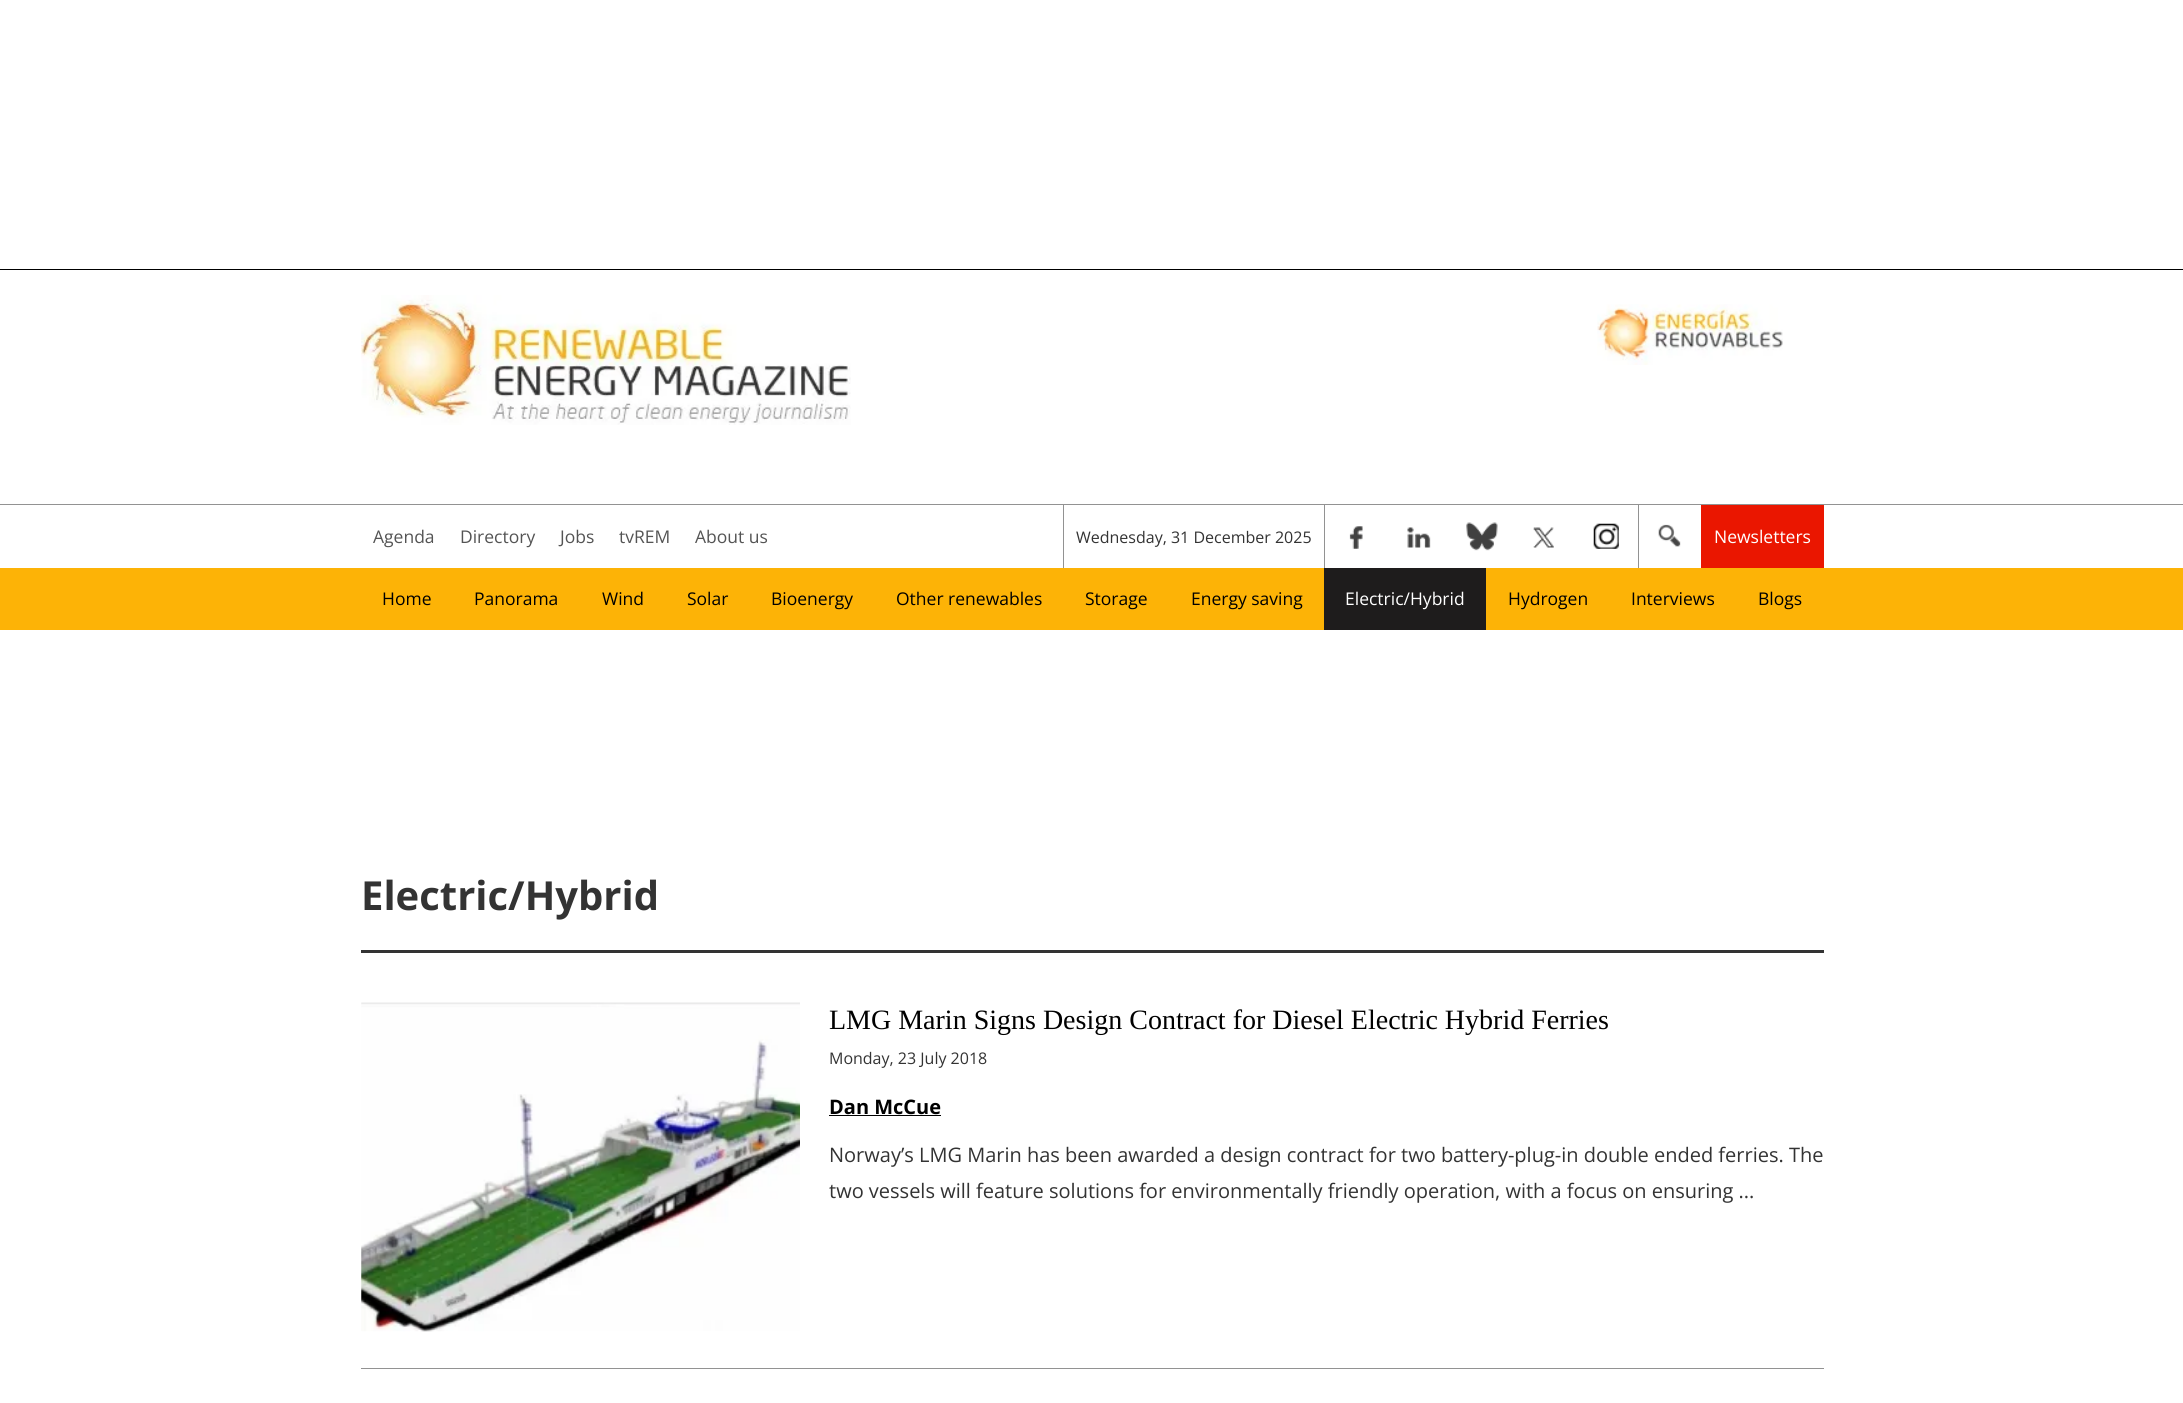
#include <cairo.h>
#include <math.h>
#include <stddef.h>


static void set_color(cairo_t *cr, unsigned color) {
    cairo_set_source_rgb(cr, (color >> 16) / 255.0, (color >> 8 & 255) / 255.0, (color & 255) / 255.0);
}

static void draw_text(cairo_t *cr, double x, double y, const char *s, const char *family, double size, int italic, int bold, unsigned color) {
    cairo_select_font_face(cr, family, italic ? CAIRO_FONT_SLANT_ITALIC : CAIRO_FONT_SLANT_NORMAL,
        bold ? CAIRO_FONT_WEIGHT_BOLD : CAIRO_FONT_WEIGHT_NORMAL);
    cairo_set_font_size(cr, size);
    set_color(cr, color);
    cairo_move_to(cr, x, y);
    cairo_show_text(cr, s);
}

static void fill_rect(cairo_t *cr, double x, double y, double w, double h, unsigned color) {
    set_color(cr, color);
    cairo_rectangle(cr, x, y, w, h);
    cairo_fill(cr);
}

static void draw_image(cairo_t *cr, const char *path, double x, double y, double w, double h) {
    cairo_surface_t *image = cairo_image_surface_create_from_png(path);
    cairo_save(cr);
    cairo_set_source_surface(cr, image, x, y);
    cairo_rectangle(cr, x, y, w, h);
    cairo_fill(cr);
    cairo_restore(cr);
    cairo_surface_destroy(image);
}

int main(void) {
    cairo_surface_t *surface = cairo_image_surface_create(CAIRO_FORMAT_RGB24, 2183, 1403);
    cairo_t *cr = cairo_create(surface);
    cairo_font_options_t *options = cairo_font_options_create();
    cairo_font_options_set_hint_metrics(options, CAIRO_HINT_METRICS_OFF);
    cairo_font_options_set_hint_style(options, CAIRO_HINT_STYLE_NONE);
    cairo_set_font_options(cr, options);
    cairo_set_miter_limit(cr, 4);
    set_color(cr, 0xFFFFFF);
    cairo_paint(cr);
    fill_rect(cr, 0, 269, 2183, 1, 0x000000);
    draw_image(cr, "assets/img1.png", 361, 295, 490, 130);
    draw_image(cr, "assets/img2.png", 1597, 304, 186, 61);
    fill_rect(cr, 0, 504, 2183, 1, 0x929292);
    draw_text(cr, 373, 543, "Agenda", "Open Sans", 17.5, 0, 0, 0x545454);
    draw_text(cr, 460, 543, "Directory", "Open Sans", 17.5, 0, 0, 0x545454);
    draw_text(cr, 560, 543, "Jobs", "Open Sans", 17.5, 0, 0, 0x545454);
    draw_text(cr, 619, 543, "tvREM", "Open Sans", 17.5, 0, 0, 0x545454);
    draw_text(cr, 695, 543, "About us", "Open Sans", 17.5, 0, 0, 0x545454);
    fill_rect(cr, 1324, 505, 1, 63, 0x929292);
    fill_rect(cr, 1063, 505, 1, 63, 0x929292);
    draw_text(cr, 1076, 543, "Wednesday, 31 December 2025", "Open Sans", 16, 0, 0, 0x333333);
    draw_image(cr, "assets/img3.png", 1349, 526, 14, 23);
    draw_image(cr, "assets/img4.png", 1407, 527, 24, 21);
    draw_image(cr, "assets/img5.png", 1466, 522, 32, 29);
    draw_image(cr, "assets/img6.png", 1533, 527, 21, 21);
    draw_image(cr, "assets/img7.png", 1593, 523, 26, 26);
    fill_rect(cr, 1638, 505, 1, 63, 0x929292);
    draw_image(cr, "assets/img8.png", 1658, 524, 23, 23);
    fill_rect(cr, 1701, 505, 123, 63, 0xEA1600);
    draw_text(cr, 1714, 543, "Newsletters", "Open Sans", 17.5, 0, 0, 0xFFFFFF);
    fill_rect(cr, 0, 568, 2183, 62, 0xFDB306);
    draw_text(cr, 382, 605, "Home", "Open Sans", 17.5, 0, 0, 0x000000);
    draw_text(cr, 474, 605, "Panorama", "Open Sans", 17.5, 0, 0, 0x000000);
    draw_text(cr, 602, 605, "Wind", "Open Sans", 17.5, 0, 0, 0x000000);
    draw_text(cr, 687, 605, "Solar", "Open Sans", 17.5, 0, 0, 0x000000);
    draw_text(cr, 771, 605, "Bioenergy", "Open Sans", 17.5, 0, 0, 0x000000);
    draw_text(cr, 896, 605, "Other renewables", "Open Sans", 17.5, 0, 0, 0x000000);
    draw_text(cr, 1085, 605, "Storage", "Open Sans", 17.5, 0, 0, 0x000000);
    draw_text(cr, 1191, 605, "Energy saving", "Open Sans", 17.5, 0, 0, 0x000000);
    fill_rect(cr, 1324, 568, 162, 62, 0x1E1C1C);
    draw_text(cr, 1345, 605, "Electric/Hybrid", "Open Sans", 17.5, 0, 0, 0xFFFFFF);
    draw_text(cr, 1508, 605, "Hydrogen", "Open Sans", 17.5, 0, 0, 0x000000);
    draw_text(cr, 1631, 605, "Interviews", "Open Sans", 17.5, 0, 0, 0x000000);
    draw_text(cr, 1758, 605, "Blogs", "Open Sans", 17.5, 0, 0, 0x000000);
    fill_rect(cr, 361, 950, 1463, 3, 0x333333);
    draw_text(cr, 361, 910, "Electric/Hybrid", "Open Sans", 40, 0, 1, 0x333333);
    fill_rect(cr, 361, 1368, 1463, 1, 0x929292);
    draw_image(cr, "assets/img9.png", 361, 1002, 439, 330);
    draw_text(cr, 829, 1029, "LMG Marin Signs Design Contract for Diesel Electric Hybrid Ferries", "Liberation Serif", 28, 0, 0, 0x000000);
    draw_text(cr, 829, 1064, "Monday, 23 July 2018", "Open Sans", 16, 0, 0, 0x333333);
    draw_text(cr, 829, 1114, "Dan McCue", "Open Sans", 20, 0, 1, 0x000000);
    fill_rect(cr, 829, 1115, 112, 1, 0x000000);
    draw_text(cr, 829, 1162, "Norway’s LMG Marin has been awarded a design contract for two battery-plug-in double ended ferries. The", "Open Sans", 20, 0, 0, 0x333333);
    draw_text(cr, 829, 1198, "two vessels will feature solutions for environmentally friendly operation, with a focus on ensuring ...", "Open Sans", 20, 0, 0, 0x333333);
    cairo_surface_write_to_png(surface, "output.png");
    cairo_font_options_destroy(options);
    cairo_destroy(cr);
    cairo_surface_destroy(surface);
    return 0;
}
